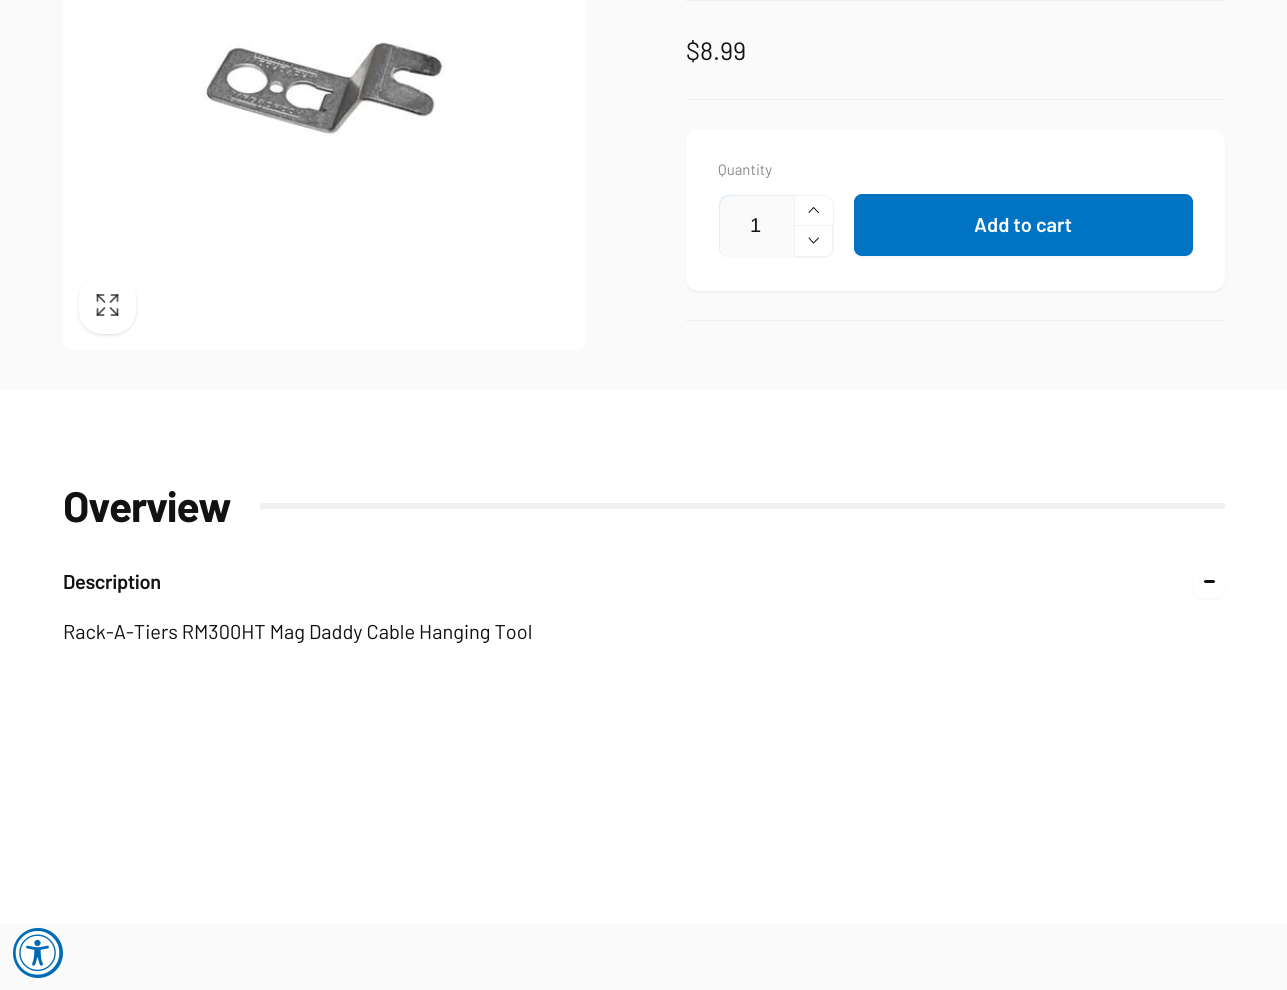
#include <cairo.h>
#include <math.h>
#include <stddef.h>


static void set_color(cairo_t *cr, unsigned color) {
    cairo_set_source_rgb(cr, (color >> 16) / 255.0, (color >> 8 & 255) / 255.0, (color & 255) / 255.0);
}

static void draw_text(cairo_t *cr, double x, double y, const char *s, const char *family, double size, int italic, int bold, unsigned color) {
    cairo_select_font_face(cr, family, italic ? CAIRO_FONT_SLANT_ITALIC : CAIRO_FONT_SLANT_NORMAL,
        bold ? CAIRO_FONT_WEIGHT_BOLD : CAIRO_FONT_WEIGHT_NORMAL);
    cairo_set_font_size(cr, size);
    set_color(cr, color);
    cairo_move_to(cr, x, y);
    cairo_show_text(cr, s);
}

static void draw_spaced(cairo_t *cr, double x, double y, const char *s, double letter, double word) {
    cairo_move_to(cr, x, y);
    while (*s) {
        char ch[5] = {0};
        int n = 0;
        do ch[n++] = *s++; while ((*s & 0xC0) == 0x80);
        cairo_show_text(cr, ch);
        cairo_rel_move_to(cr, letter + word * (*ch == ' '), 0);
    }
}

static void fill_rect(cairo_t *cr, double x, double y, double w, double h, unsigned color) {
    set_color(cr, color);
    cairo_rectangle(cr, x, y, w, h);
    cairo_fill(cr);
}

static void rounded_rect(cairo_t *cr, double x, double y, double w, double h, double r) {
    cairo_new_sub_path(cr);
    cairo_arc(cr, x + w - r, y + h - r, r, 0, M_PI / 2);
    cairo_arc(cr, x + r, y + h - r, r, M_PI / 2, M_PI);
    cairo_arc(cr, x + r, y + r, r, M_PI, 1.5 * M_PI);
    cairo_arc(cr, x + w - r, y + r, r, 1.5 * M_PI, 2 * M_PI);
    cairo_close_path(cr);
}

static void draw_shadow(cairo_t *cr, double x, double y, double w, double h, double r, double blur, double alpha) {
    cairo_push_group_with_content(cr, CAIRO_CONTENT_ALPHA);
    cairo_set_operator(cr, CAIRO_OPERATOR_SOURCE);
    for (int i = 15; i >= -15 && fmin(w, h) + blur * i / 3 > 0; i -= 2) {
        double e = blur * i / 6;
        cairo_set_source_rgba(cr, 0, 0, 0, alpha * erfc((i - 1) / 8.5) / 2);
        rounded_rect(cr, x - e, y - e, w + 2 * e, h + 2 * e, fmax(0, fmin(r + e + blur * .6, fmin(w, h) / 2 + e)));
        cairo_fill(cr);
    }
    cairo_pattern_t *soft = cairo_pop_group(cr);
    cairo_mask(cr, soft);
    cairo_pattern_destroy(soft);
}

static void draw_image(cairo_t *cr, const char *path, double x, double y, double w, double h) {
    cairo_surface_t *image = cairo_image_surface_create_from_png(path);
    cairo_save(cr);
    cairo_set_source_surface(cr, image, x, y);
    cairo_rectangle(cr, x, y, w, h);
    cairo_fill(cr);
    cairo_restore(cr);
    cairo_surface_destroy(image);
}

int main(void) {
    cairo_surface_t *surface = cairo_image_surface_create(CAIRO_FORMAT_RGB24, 1287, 990);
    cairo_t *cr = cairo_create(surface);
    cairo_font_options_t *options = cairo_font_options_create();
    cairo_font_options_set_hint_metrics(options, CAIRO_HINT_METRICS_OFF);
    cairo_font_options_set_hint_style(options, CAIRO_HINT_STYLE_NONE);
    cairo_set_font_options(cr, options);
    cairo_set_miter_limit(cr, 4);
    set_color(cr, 0xFFFFFF);
    cairo_paint(cr);
    fill_rect(cr, 0, 0, 1287, 390, 0xFAFAFA);
    draw_image(cr, "assets/img1.png", 63, 0, 523, 350);
    set_color(cr, 0x121212);
    draw_shadow(cr, 79, 278, 57, 57, 23, 1, 0.06);
    draw_shadow(cr, 79, 278, 57, 57, 23, 2, 0.1);
    set_color(cr, 0xFFFFFF);
    rounded_rect(cr, 79, 276, 57, 58, 23);
    cairo_fill(cr);
    draw_image(cr, "assets/img2.png", 96, 294, 23, 22);
    fill_rect(cr, 686, 0, 539, 1, 0xEEEEEE);
    draw_text(cr, 686, 60, "$8.99", "Barlow", 25, 0, 0, 0x121212);
    fill_rect(cr, 686, 99, 539, 1, 0xEEEEEE);
    set_color(cr, 0x121212);
    draw_shadow(cr, 686, 130, 539, 163, 13, 1, 0.05);
    set_color(cr, 0xFFFFFF);
    rounded_rect(cr, 686, 129, 539, 162, 13);
    cairo_fill(cr);
    draw_text(cr, 718, 175, "Quantity", "Barlow", 15, 0, 0, 0x898989);
    set_color(cr, 0xFAFAFA);
    cairo_new_path(cr);
    cairo_move_to(cr, 729, 195);
    cairo_line_to(cr, 794, 195);
    cairo_line_to(cr, 794, 258);
    cairo_line_to(cr, 729, 258);
    cairo_curve_to(cr, 723.5, 258, 719, 253.5, 719, 248);
    cairo_line_to(cr, 719, 205);
    cairo_curve_to(cr, 719, 199.5, 723.5, 195, 729, 195);
    cairo_close_path(cr);
    cairo_fill(cr);
    cairo_set_source_rgba(cr, 0, 0.455, 0.761, 0.1);
    cairo_new_path(cr);
    cairo_move_to(cr, 730, 196);
    cairo_line_to(cr, 794, 196);
    cairo_line_to(cr, 794, 195);
    cairo_line_to(cr, 729, 195);
    cairo_curve_to(cr, 723, 195, 719, 199, 719, 205);
    cairo_line_to(cr, 719, 248);
    cairo_curve_to(cr, 719, 251, 720, 254, 723, 256);
    cairo_curve_to(cr, 721, 254, 720, 251, 720, 249);
    cairo_line_to(cr, 720, 206);
    cairo_curve_to(cr, 720, 201, 724, 196, 730, 196);
    cairo_close_path(cr);
    cairo_fill(cr);
    draw_text(cr, 750, 232, "1", "Liberation Sans", 20, 0, 0, 0x121212);
    cairo_new_path(cr);
    cairo_move_to(cr, 794.5, 195.5);
    cairo_line_to(cr, 824, 195.5);
    cairo_curve_to(cr, 829, 195.5, 833.5, 200, 833.5, 205);
    cairo_line_to(cr, 833.5, 225.5);
    cairo_line_to(cr, 794.5, 225.5);
    cairo_close_path(cr);
    set_color(cr, 0xF3F3F3);
    cairo_set_line_width(cr, 1);
    cairo_stroke(cr);
    cairo_set_fill_rule(cr, CAIRO_FILL_RULE_EVEN_ODD);
    cairo_new_path(cr);
    cairo_move_to(cr, 794, 226);
    cairo_line_to(cr, 834, 226);
    cairo_line_to(cr, 834, 248);
    cairo_curve_to(cr, 834, 253, 829, 258, 824, 258);
    cairo_line_to(cr, 794, 258);
    cairo_close_path(cr);
    cairo_move_to(cr, 795, 226);
    cairo_line_to(cr, 832, 226);
    cairo_line_to(cr, 832, 248);
    cairo_curve_to(cr, 832, 252, 829, 256, 824, 256);
    cairo_line_to(cr, 795, 256);
    cairo_close_path(cr);
    cairo_fill(cr);
    cairo_new_path(cr);
    cairo_move_to(cr, 818.5, 212.5);
    cairo_line_to(cr, 813.5, 207.5);
    cairo_line_to(cr, 809, 212.5);
    cairo_move_to(cr, 818.5, 238);
    cairo_line_to(cr, 813.5, 243);
    cairo_line_to(cr, 809, 238);
    set_color(cr, 0x121212);
    cairo_set_line_cap(cr, CAIRO_LINE_CAP_ROUND);
    cairo_set_line_join(cr, CAIRO_LINE_JOIN_ROUND);
    cairo_stroke(cr);
    set_color(cr, 0x121212);
    draw_shadow(cr, 854, 195, 339, 63, 8, 1, 0.05);
    set_color(cr, 0x0074C2);
    rounded_rect(cr, 854.5, 194.5, 338, 61, 7.5);
    cairo_fill_preserve(cr);
    cairo_set_line_cap(cr, CAIRO_LINE_CAP_BUTT);
    cairo_set_line_join(cr, CAIRO_LINE_JOIN_MITER);
    cairo_stroke(cr);
    draw_text(cr, 974, 232, "Add to cart", "Barlow SemiBold", 20, 0, 0, 0xFFFFFF);
    fill_rect(cr, 686, 320, 539, 1, 0xEEEEEE);
    cairo_select_font_face(cr, "Barlow", CAIRO_FONT_SLANT_NORMAL, CAIRO_FONT_WEIGHT_BOLD);
    cairo_set_font_size(cr, 42.5);
    set_color(cr, 0x121212);
    draw_spaced(cr, 63, 522, "Overview", -1.25, 0);
    fill_rect(cr, 260, 503, 965, 6, 0xF1F1F1);
    cairo_select_font_face(cr, "Barlow SemiBold", CAIRO_FONT_SLANT_NORMAL, CAIRO_FONT_WEIGHT_NORMAL);
    cairo_set_font_size(cr, 20);
    set_color(cr, 0x121212);
    draw_spaced(cr, 63, 589, "Description", -0.4, 0);
    set_color(cr, 0x121212);
    draw_shadow(cr, 1193, 566, 32, 33, 10, 1, 0.05);
    set_color(cr, 0xFFFFFF);
    rounded_rect(cr, 1193, 565, 32, 33, 10);
    cairo_fill(cr);
    set_color(cr, 0x121212);
    rounded_rect(cr, 1204, 580, 11, 3, 1.5);
    cairo_fill(cr);
    draw_text(cr, 63, 639, "Rack-A-Tiers RM300HT Mag Daddy Cable Hanging Tool", "Barlow", 20, 0, 0, 0x121212);
    fill_rect(cr, 0, 924, 1287, 66, 0xFAFAFA);
    set_color(cr, 0x006CB4);
    cairo_new_path(cr);
    cairo_arc(cr, 38, 953, 25, 0, 2 * M_PI);
    cairo_fill(cr);
    draw_image(cr, "assets/img3.png", 15, 931, 45, 44);
    cairo_surface_write_to_png(surface, "output.png");
    cairo_font_options_destroy(options);
    cairo_destroy(cr);
    cairo_surface_destroy(surface);
    return 0;
}
